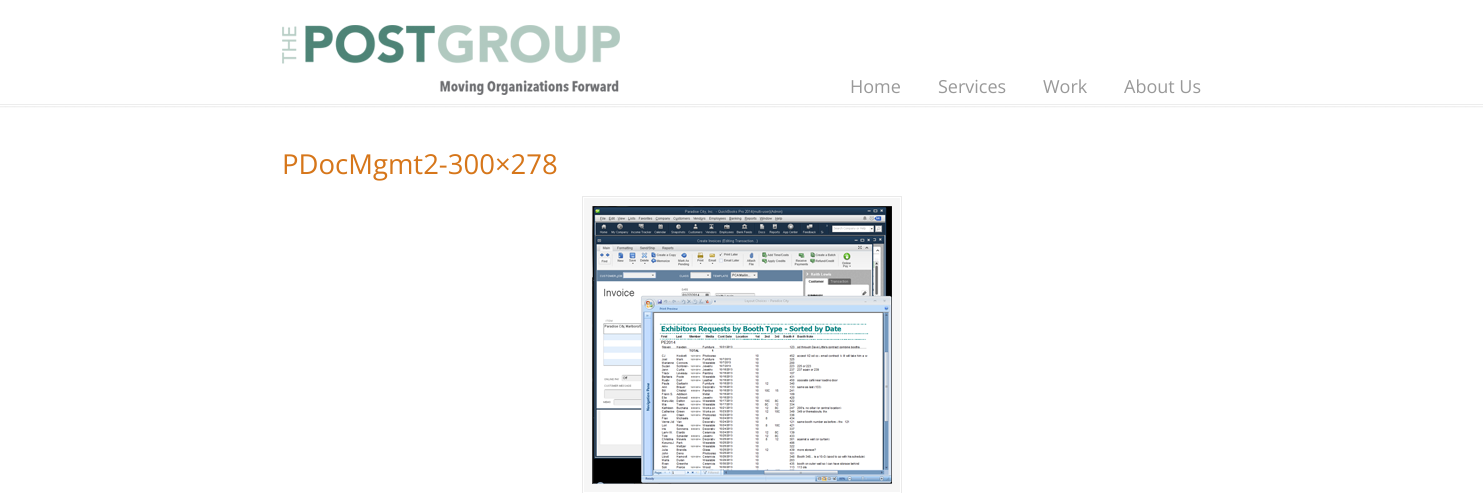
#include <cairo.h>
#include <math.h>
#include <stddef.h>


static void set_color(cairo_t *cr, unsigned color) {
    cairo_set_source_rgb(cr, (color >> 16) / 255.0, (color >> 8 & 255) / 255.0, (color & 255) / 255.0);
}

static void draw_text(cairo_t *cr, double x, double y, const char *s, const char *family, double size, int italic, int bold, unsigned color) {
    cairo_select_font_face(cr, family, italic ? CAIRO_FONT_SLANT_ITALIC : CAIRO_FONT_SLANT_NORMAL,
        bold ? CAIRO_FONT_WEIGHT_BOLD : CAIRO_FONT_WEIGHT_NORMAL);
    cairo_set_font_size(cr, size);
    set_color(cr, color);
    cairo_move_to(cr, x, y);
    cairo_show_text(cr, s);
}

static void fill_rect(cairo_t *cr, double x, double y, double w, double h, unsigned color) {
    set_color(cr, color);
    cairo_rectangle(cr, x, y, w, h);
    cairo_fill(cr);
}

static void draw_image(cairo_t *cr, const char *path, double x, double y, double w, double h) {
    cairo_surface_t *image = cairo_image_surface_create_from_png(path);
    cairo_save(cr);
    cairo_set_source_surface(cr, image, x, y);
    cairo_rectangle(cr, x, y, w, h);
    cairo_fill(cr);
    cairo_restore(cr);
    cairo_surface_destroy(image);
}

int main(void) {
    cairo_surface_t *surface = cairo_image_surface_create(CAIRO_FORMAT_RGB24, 1483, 493);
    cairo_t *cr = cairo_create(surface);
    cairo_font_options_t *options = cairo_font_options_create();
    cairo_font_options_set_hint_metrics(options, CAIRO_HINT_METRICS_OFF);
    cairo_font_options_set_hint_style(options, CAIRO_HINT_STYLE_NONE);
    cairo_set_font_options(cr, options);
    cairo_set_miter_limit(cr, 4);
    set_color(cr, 0xFFFFFF);
    cairo_paint(cr);
    draw_image(cr, "assets/img1.png", 282, 25, 338, 70);
    draw_text(cr, 850, 93, "Home", "Open Sans", 18, 0, 0, 0x999999);
    draw_text(cr, 938, 93, "Services", "Open Sans", 18, 0, 0, 0x999999);
    draw_text(cr, 1043, 93, "Work", "Open Sans", 18, 0, 0, 0x999999);
    draw_text(cr, 1124, 93, "About Us", "Open Sans", 18, 0, 0, 0x999999);
    fill_rect(cr, 0, 104, 1483, 1, 0xEDEDED);
    draw_image(cr, "assets/img2.png", 0, 106, 1483, 2);
    draw_text(cr, 282, 174, "PDocMgmt2-300×278", "Open Sans", 27.5, 0, 0, 0xD6761A);
    fill_rect(cr, 584, 198, 316, 294, 0xF6F6F6);
    cairo_rectangle(cr, 582.5, 196.5, 319, 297);
    set_color(cr, 0xEAEAEA);
    cairo_set_line_width(cr, 1);
    cairo_stroke(cr);
    draw_image(cr, "assets/img3.png", 592, 206, 300, 278);
    cairo_surface_write_to_png(surface, "output.png");
    cairo_font_options_destroy(options);
    cairo_destroy(cr);
    cairo_surface_destroy(surface);
    return 0;
}
